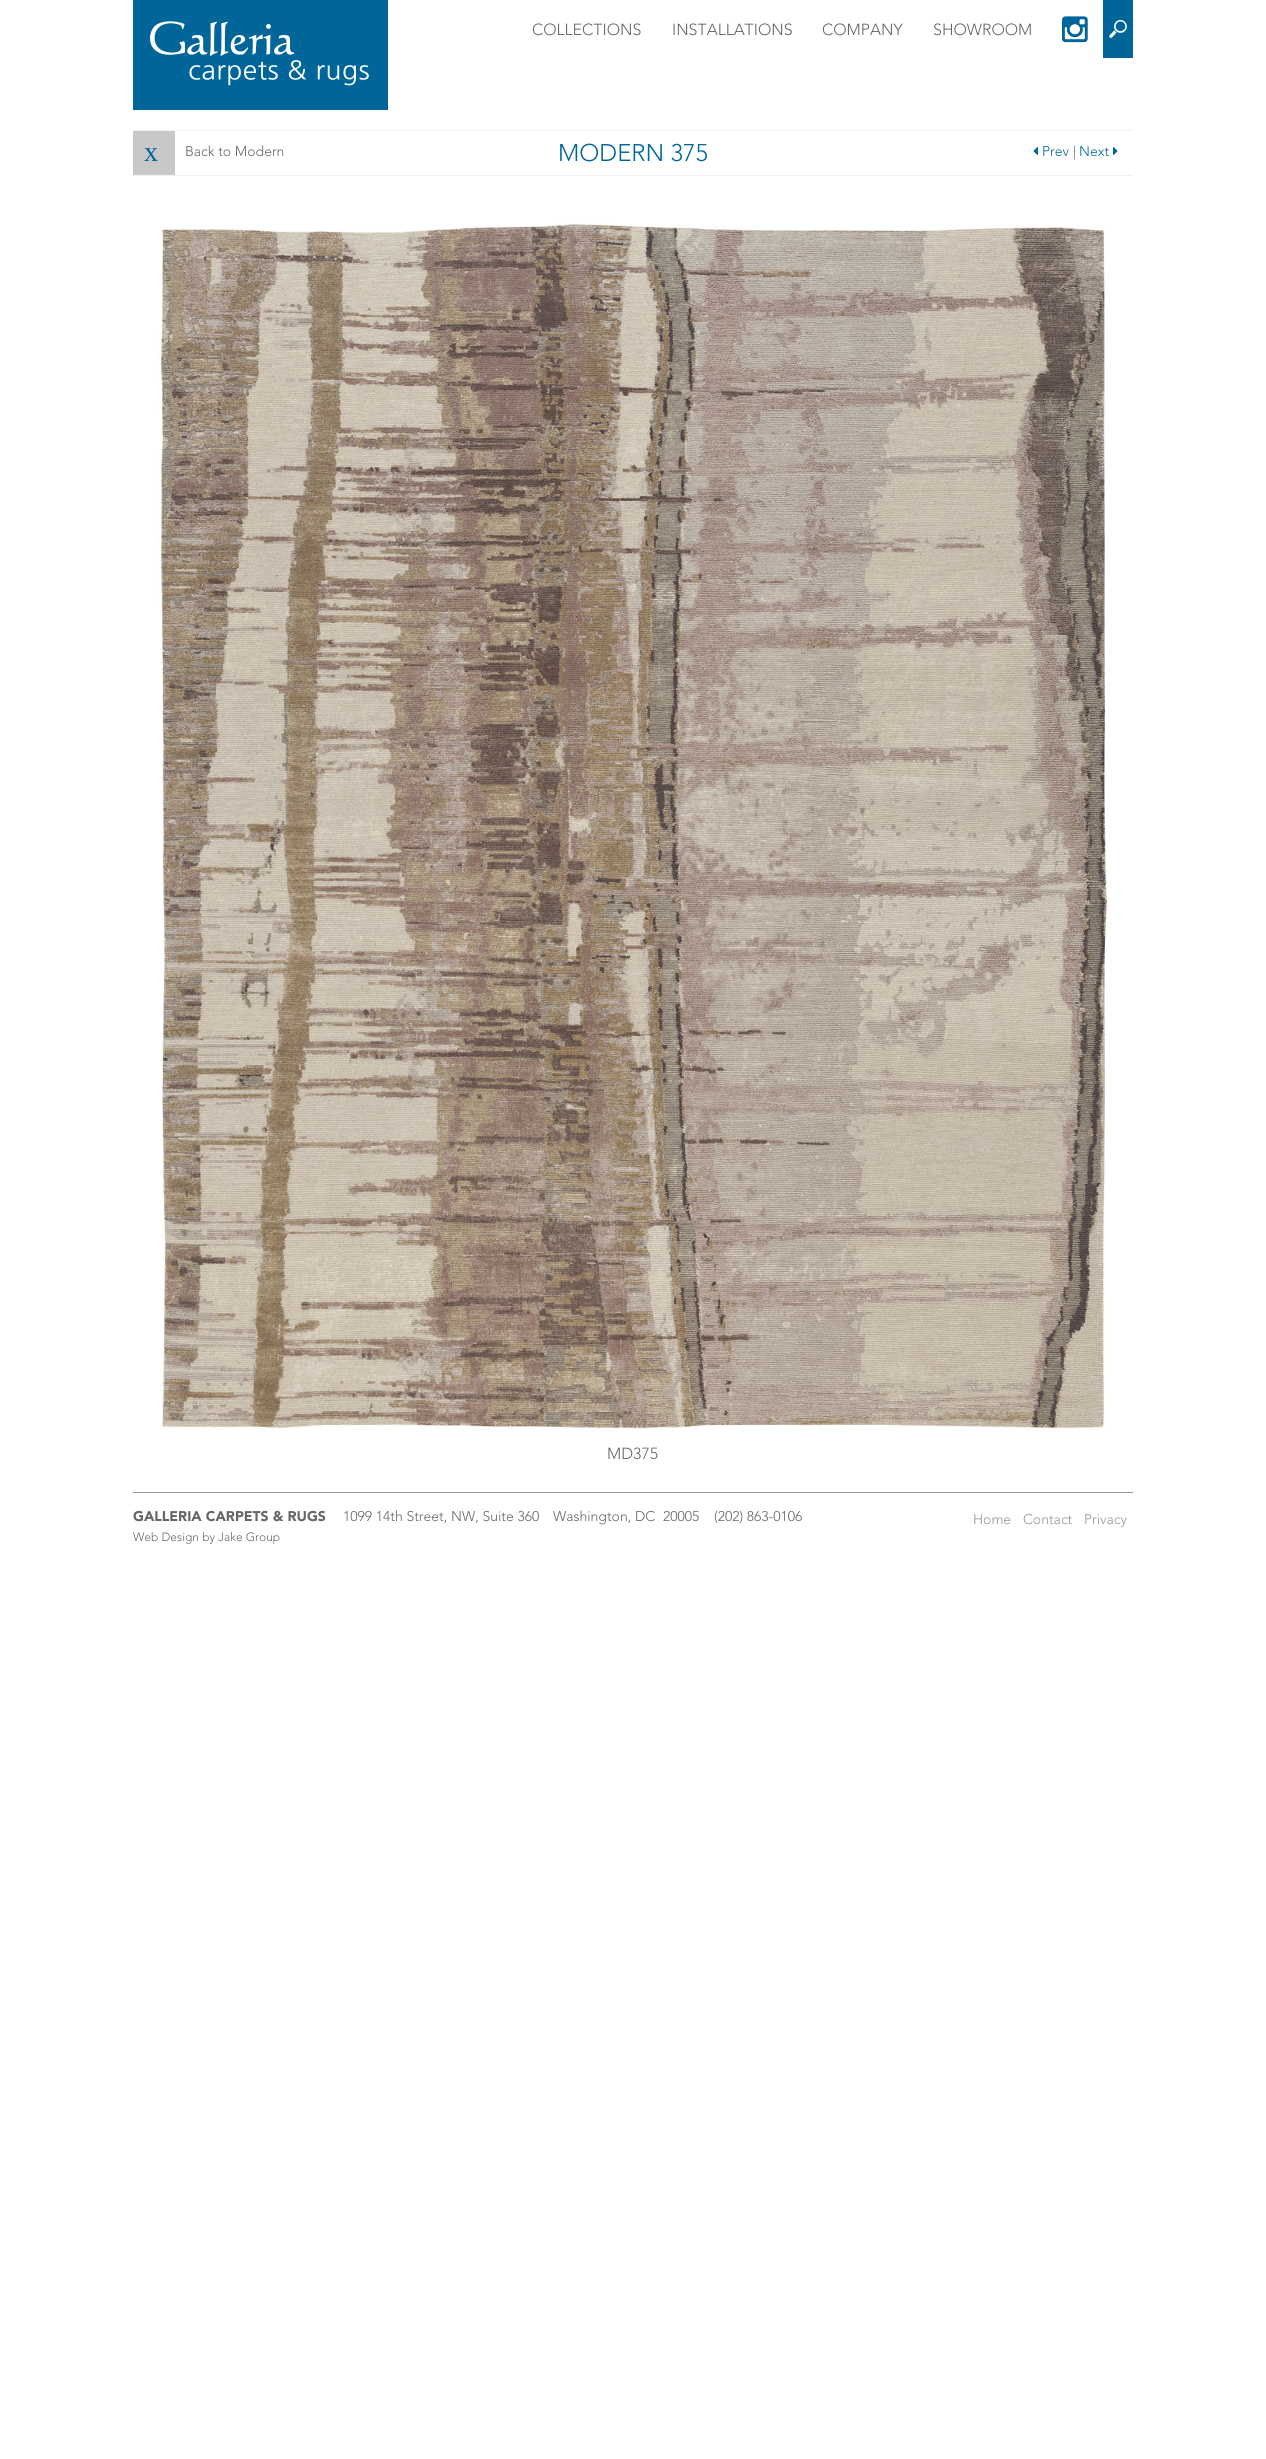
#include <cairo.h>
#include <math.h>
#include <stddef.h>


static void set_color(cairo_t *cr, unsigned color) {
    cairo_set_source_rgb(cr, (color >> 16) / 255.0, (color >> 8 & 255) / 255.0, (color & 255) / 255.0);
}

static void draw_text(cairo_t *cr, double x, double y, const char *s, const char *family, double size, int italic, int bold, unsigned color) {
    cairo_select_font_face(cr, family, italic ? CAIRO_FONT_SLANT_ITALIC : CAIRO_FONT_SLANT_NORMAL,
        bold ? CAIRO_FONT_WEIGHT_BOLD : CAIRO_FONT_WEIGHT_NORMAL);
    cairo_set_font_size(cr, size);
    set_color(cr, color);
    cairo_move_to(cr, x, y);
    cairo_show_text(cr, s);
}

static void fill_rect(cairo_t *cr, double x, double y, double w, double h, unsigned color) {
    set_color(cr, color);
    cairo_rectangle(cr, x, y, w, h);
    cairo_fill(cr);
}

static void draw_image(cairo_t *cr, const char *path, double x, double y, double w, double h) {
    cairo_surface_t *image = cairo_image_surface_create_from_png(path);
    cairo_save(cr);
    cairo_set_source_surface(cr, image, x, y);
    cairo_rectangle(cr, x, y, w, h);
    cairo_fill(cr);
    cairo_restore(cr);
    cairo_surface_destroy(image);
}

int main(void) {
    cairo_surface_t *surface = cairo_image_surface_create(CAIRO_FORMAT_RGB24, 1266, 2459);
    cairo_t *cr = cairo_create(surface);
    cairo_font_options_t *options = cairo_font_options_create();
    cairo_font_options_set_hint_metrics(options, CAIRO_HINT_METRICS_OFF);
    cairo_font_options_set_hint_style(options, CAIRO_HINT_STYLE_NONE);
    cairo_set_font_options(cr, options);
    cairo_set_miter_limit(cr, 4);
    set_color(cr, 0xFFFFFF);
    cairo_paint(cr);
    fill_rect(cr, 133, 0, 255, 110, 0x006699);
    draw_image(cr, "assets/img1.png", 150, 21, 219, 65);
    draw_text(cr, 532, 35, "COLLECTIONS", "Avenir Light", 16, 0, 0, 0x666666);
    draw_text(cr, 672, 35, "INSTALLATIONS", "Avenir Light", 16, 0, 0, 0x666666);
    draw_text(cr, 822, 35, "COMPANY", "Avenir Light", 16, 0, 0, 0x666666);
    draw_text(cr, 933, 35, "SHOWROOM", "Avenir Light", 16, 0, 0, 0x666666);
    draw_image(cr, "assets/img2.png", 1062, 16, 26, 27);
    fill_rect(cr, 1103, 0, 30, 58, 0x006699);
    draw_image(cr, "assets/img3.png", 1109, 20, 18, 18);
    fill_rect(cr, 133, 130, 1000, 1, 0xF1F1F1);
    fill_rect(cr, 133, 175, 1000, 1, 0xF1F1F1);
    fill_rect(cr, 133, 131, 42, 44, 0xC8C8C8);
    draw_text(cr, 144, 161, "x", "Liberation Serif", 28, 0, 0, 0x006699);
    draw_text(cr, 185, 156, "Back to Modern", "Avenir Light", 14, 0, 0, 0x666666);
    draw_text(cr, 558, 161, "MODERN 375", "Avenir Light", 24, 0, 0, 0x006699);
    draw_image(cr, "assets/img4.png", 1033, 147, 5, 8);
    draw_text(cr, 1042, 156, "Prev", "Avenir Light", 14, 0, 0, 0x006699);
    draw_text(cr, 1073, 156, "|", "Avenir Light", 14, 0, 0, 0x666666);
    draw_text(cr, 1079, 156, "Next", "Avenir Light", 14, 0, 0, 0x006699);
    draw_image(cr, "assets/img5.png", 1113, 147, 5, 8);
    draw_image(cr, "assets/img6.png", 157, 223, 952, 1206);
    draw_text(cr, 607, 1459, "MD375", "Avenir Light", 16, 0, 0, 0x666666);
    fill_rect(cr, 133, 1492, 1000, 1, 0x959595);
    draw_text(cr, 133, 1521, "GALLERIA CARPETS & RUGS", "Avenir Black", 14, 0, 0, 0x666666);
    draw_text(cr, 343, 1521, "1099 14th Street, NW, Suite 360", "Avenir Light", 14, 0, 0, 0x666666);
    draw_text(cr, 553, 1521, "Washington, DC", "Avenir Light", 14, 0, 0, 0x666666);
    draw_text(cr, 663, 1521, "20005", "Avenir Light", 14, 0, 0, 0x666666);
    draw_text(cr, 714, 1521, "(202) 863-0106", "Avenir Light", 14, 0, 0, 0x666666);
    draw_text(cr, 973, 1524, "Home", "Avenir Light", 14, 0, 0, 0x959595);
    draw_text(cr, 1023, 1524, "Contact", "Avenir Light", 14, 0, 0, 0x959595);
    draw_text(cr, 1084, 1524, "Privacy", "Avenir Light", 14, 0, 0, 0x959595);
    draw_text(cr, 133, 1541, "Web Design by Jake Group", "Avenir Light", 12, 0, 0, 0x666666);
    cairo_surface_write_to_png(surface, "output.png");
    cairo_font_options_destroy(options);
    cairo_destroy(cr);
    cairo_surface_destroy(surface);
    return 0;
}
